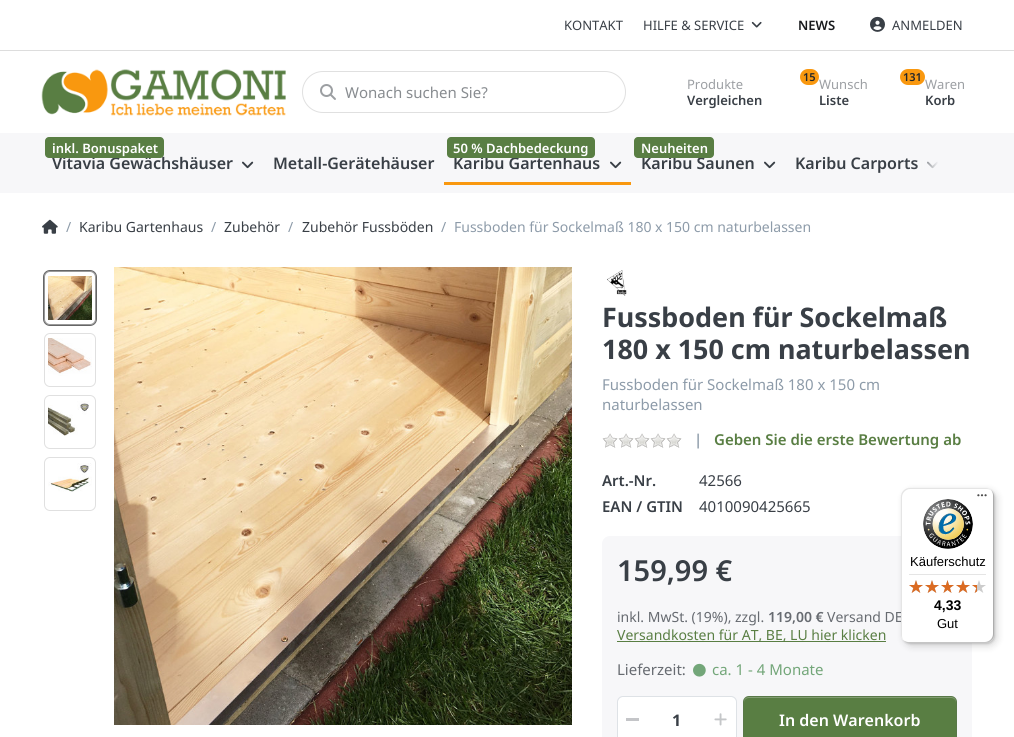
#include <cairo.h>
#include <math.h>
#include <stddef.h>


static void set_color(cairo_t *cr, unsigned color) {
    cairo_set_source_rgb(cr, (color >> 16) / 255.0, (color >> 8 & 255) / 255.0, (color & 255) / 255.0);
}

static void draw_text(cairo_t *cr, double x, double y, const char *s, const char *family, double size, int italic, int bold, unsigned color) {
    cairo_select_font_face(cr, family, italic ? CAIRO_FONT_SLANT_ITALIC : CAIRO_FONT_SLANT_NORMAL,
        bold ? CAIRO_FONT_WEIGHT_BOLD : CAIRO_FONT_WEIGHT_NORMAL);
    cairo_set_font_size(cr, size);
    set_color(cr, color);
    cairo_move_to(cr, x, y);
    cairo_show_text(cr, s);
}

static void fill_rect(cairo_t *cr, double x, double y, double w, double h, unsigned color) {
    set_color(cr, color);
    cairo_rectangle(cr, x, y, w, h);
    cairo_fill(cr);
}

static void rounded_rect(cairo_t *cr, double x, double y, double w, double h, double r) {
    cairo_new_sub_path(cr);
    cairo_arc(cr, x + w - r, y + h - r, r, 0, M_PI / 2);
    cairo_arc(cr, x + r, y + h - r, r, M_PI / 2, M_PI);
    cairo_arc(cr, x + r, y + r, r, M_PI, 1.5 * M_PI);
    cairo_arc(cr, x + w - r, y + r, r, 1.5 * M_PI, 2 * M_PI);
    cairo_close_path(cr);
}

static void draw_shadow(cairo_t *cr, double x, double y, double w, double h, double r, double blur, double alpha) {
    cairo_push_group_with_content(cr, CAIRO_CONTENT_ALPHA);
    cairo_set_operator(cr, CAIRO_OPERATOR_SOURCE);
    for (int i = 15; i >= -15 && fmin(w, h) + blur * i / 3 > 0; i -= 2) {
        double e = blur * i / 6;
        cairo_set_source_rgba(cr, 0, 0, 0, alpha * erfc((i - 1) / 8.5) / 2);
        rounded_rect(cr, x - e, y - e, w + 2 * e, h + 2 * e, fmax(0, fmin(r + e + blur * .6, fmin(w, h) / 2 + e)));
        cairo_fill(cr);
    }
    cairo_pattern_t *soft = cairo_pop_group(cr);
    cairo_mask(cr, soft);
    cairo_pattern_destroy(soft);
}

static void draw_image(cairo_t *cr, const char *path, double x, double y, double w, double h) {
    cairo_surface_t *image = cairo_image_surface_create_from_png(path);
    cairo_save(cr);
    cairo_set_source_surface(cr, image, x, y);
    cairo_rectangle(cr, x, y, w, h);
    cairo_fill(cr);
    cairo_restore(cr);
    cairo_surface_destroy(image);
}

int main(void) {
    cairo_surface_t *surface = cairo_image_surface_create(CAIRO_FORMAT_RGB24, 1014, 737);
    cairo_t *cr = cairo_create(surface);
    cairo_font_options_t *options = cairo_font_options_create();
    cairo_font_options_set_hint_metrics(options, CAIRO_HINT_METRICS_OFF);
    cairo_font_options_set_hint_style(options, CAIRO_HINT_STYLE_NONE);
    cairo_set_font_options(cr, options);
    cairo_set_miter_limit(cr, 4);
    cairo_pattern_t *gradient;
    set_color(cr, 0xFFFFFF);
    cairo_paint(cr);
    fill_rect(cr, 0, 50, 1014, 1, 0xDDDDDD);
    draw_text(cr, 564, 30, "KONTAKT", "Noto Sans", 13, 0, 0, 0x393F46);
    draw_text(cr, 643, 30, "HILFE & SERVICE", "Noto Sans", 13, 0, 0, 0x393F46);
    draw_image(cr, "assets/img1.png", 751, 21, 11, 7);
    draw_text(cr, 798, 30, "NEWS", "Noto Sans SemiBold", 13, 0, 0, 0x17191C);
    draw_image(cr, "assets/img2.png", 870, 16, 15, 16);
    draw_text(cr, 892, 30, "ANMELDEN", "Noto Sans", 13, 0, 0, 0x393F46);
    draw_image(cr, "assets/img3.png", 41, 69, 245, 47);
    rounded_rect(cr, 302.5, 71.5, 323, 41, 20.5);
    set_color(cr, 0xE0E0E0);
    cairo_set_line_width(cr, 1);
    cairo_stroke(cr);
    draw_image(cr, "assets/img4.png", 320, 84, 16, 16);
    draw_text(cr, 345, 98, "Wonach suchen Sie?", "Noto Sans", 15, 0, 0, 0x888C90);
    draw_text(cr, 687, 89, "Produkte", "Noto Sans", 13, 0, 0, 0x9C9FA3);
    draw_text(cr, 687, 105, "Vergleichen", "Noto Sans SemiBold", 13, 0, 0, 0x393F46);
    set_color(cr, 0xF9980F);
    rounded_rect(cr, 799, 68, 21, 18, 9);
    cairo_fill(cr);
    rounded_rect(cr, 799, 68, 21, 18, 9);
    set_color(cr, 0xFFFFFF);
    cairo_set_line_width(cr, 2);
    cairo_stroke(cr);
    draw_text(cr, 803, 81, "15", "Noto Sans SemiBold", 11, 0, 0, 0x22262A);
    draw_text(cr, 819, 89, "Wunsch", "Noto Sans", 13, 0, 0, 0x9C9FA3);
    draw_text(cr, 819, 105, "Liste", "Noto Sans SemiBold", 13, 0, 0, 0x393F46);
    set_color(cr, 0xF9980F);
    rounded_rect(cr, 899, 68, 27, 18, 9);
    cairo_fill(cr);
    rounded_rect(cr, 899, 68, 27, 18, 9);
    set_color(cr, 0xFFFFFF);
    cairo_stroke(cr);
    draw_text(cr, 903, 81, "131", "Noto Sans SemiBold", 11, 0, 0, 0x22262A);
    draw_text(cr, 925, 89, "Waren", "Noto Sans", 13, 0, 0, 0x9C9FA3);
    draw_text(cr, 925, 105, "Korb", "Noto Sans SemiBold", 13, 0, 0, 0x393F46);
    fill_rect(cr, 0, 133, 1014, 60, 0xF7F7F9);
    draw_text(cr, 52, 169, "Vitavia Gewächshäuser", "Noto Sans SemiBold", 16, 0, 0, 0x393F46);
    set_color(cr, 0x597E43);
    rounded_rect(cr, 45, 137, 119, 21, 4);
    cairo_fill(cr);
    draw_text(cr, 52, 153, "inkl. Bonuspaket", "Noto Sans SemiBold", 13, 0, 0, 0xFFFFFF);
    draw_image(cr, "assets/img5.png", 242, 161, 12, 8);
    draw_text(cr, 273, 169, "Metall-Gerätehäuser", "Noto Sans SemiBold", 16, 0, 0, 0x393F46);
    draw_text(cr, 453, 169, "Karibu Gartenhaus", "Noto Sans SemiBold", 16, 0, 0, 0x393F46);
    set_color(cr, 0x597E43);
    rounded_rect(cr, 447, 137, 148, 21, 4);
    cairo_fill(cr);
    draw_text(cr, 453, 153, "50 % Dachbedeckung", "Noto Sans SemiBold", 13, 0, 0, 0xFFFFFF);
    draw_image(cr, "assets/img5.png", 610, 161, 12, 8);
    fill_rect(cr, 444, 182, 187, 3, 0xF9980F);
    draw_text(cr, 641, 169, "Karibu Saunen", "Noto Sans SemiBold", 16, 0, 0, 0x393F46);
    set_color(cr, 0x597E43);
    rounded_rect(cr, 634, 137, 80, 21, 4);
    cairo_fill(cr);
    draw_text(cr, 641, 153, "Neuheiten", "Noto Sans SemiBold", 13, 0, 0, 0xFFFFFF);
    draw_image(cr, "assets/img5.png", 764, 161, 12, 8);
    draw_text(cr, 795, 169, "Karibu Carports", "Noto Sans SemiBold", 16, 0, 0, 0x393F46);
    draw_image(cr, "assets/img6.png", 927, 161, 11, 8);
    gradient = cairo_pattern_create_linear(916, 163, 972, 163);
    cairo_pattern_add_color_stop_rgba(gradient, 0, 0.969, 0.969, 0.976, 0);
    cairo_pattern_add_color_stop_rgba(gradient, 0.4, 0.969, 0.969, 0.976, 1);
    cairo_pattern_add_color_stop_rgba(gradient, 1, 0.969, 0.969, 0.976, 1);
    cairo_set_source(cr, gradient);
    cairo_pattern_destroy(gradient);
    cairo_rectangle(cr, 916, 161, 22, 8);
    cairo_fill(cr);
    draw_image(cr, "assets/img7.png", 42, 219, 16, 15);
    draw_text(cr, 66, 232, "/", "Noto Sans", 14, 0, 0, 0x8D9BA9);
    draw_text(cr, 79, 232, "Karibu Gartenhaus", "Noto Sans", 14, 0, 0, 0x393F46);
    draw_text(cr, 211, 232, "/", "Noto Sans", 14, 0, 0, 0x8D9BA9);
    draw_text(cr, 224, 232, "Zubehör", "Noto Sans", 14, 0, 0, 0x393F46);
    draw_text(cr, 288, 232, "/", "Noto Sans", 14, 0, 0, 0x8D9BA9);
    draw_text(cr, 302, 232, "Zubehör Fussböden", "Noto Sans", 14, 0, 0, 0x393F46);
    draw_text(cr, 441, 232, "/", "Noto Sans", 14, 0, 0, 0x8D9BA9);
    draw_text(cr, 454, 232, "Fussboden für Sockelmaß 180 x 150 cm naturbelassen", "Noto Sans", 14, 0, 0, 0x8D9BA9);
    rounded_rect(cr, 43.5, 270.5, 53, 55, 6.5);
    set_color(cr, 0x666666);
    cairo_set_line_width(cr, 1);
    cairo_stroke(cr);
    rounded_rect(cr, 44.5, 271.5, 51, 53, 5.5);
    cairo_set_source_rgba(cr, 0, 0, 0, 0.4);
    cairo_stroke(cr);
    draw_image(cr, "assets/img8.png", 48, 276, 44, 44);
    rounded_rect(cr, 44.5, 333.5, 51, 53, 5.5);
    set_color(cr, 0xE0E0E0);
    cairo_stroke(cr);
    draw_image(cr, "assets/img9.png", 48, 338, 44, 38);
    rounded_rect(cr, 44.5, 395.5, 51, 53, 5.5);
    cairo_stroke(cr);
    draw_image(cr, "assets/img10.png", 48, 401, 41, 35);
    rounded_rect(cr, 44.5, 457.5, 51, 53, 5.5);
    cairo_stroke(cr);
    draw_image(cr, "assets/img11.png", 48, 463, 44, 29);
    draw_image(cr, "assets/img12.png", 114, 267, 458, 458);
    draw_image(cr, "assets/img13.png", 607, 270, 20, 26);
    draw_text(cr, 602, 327, "Fussboden für Sockelmaß", "Noto Sans", 26.9, 0, 1, 0x393F46);
    draw_text(cr, 602, 359, "180 x 150 cm naturbelassen", "Noto Sans", 26.9, 0, 1, 0x393F46);
    draw_text(cr, 602, 390, "Fussboden für Sockelmaß 180 x 150 cm", "Noto Sans", 15, 0, 0, 0x8D9BA9);
    draw_text(cr, 602, 410, "naturbelassen", "Noto Sans", 15, 0, 0, 0x8D9BA9);
    draw_image(cr, "assets/img14.png", 602, 433, 80, 15);
    draw_text(cr, 694, 445, "|", "Noto Sans SemiBold", 15, 0, 0, 0x8D9BA9);
    draw_text(cr, 714, 445, "Geben Sie die erste Bewertung ab", "Noto Sans SemiBold", 15, 0, 0, 0x597E43);
    draw_text(cr, 602, 486, "Art.-Nr.", "Noto Sans SemiBold", 15, 0, 0, 0x393F46);
    draw_text(cr, 699, 486, "42566", "Noto Sans", 15, 0, 0, 0x393F46);
    draw_text(cr, 602, 512, "EAN / GTIN", "Noto Sans SemiBold", 15, 0, 0, 0x393F46);
    draw_text(cr, 699, 512, "4010090425665", "Noto Sans", 15, 0, 0, 0x393F46);
    set_color(cr, 0xF7F7F9);
    rounded_rect(cr, 602, 536, 370, 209, 8);
    cairo_fill(cr);
    draw_text(cr, 617, 581, "159,99 €", "Noto Sans SemiBold", 29, 0, 0, 0x393F46);
    draw_text(cr, 617, 622, "inkl. MwSt. (19%), zzgl.", "Noto Sans", 14, 0, 0, 0x676B71);
    draw_text(cr, 768, 622, "119,00 €", "Noto Sans SemiBold", 14, 0, 0, 0x676B71);
    draw_text(cr, 827, 622, "Versand DE", "Noto Sans", 14, 0, 0, 0x676B71);
    fill_rect(cr, 617, 641, 269, 1, 0x597E43);
    draw_text(cr, 617, 640, "Versandkosten für AT, BE, LU hier klicken", "Noto Sans", 14, 0, 0, 0x597E43);
    draw_text(cr, 617, 675, "Lieferzeit:", "Noto Sans", 15, 0, 0, 0x676B71);
    draw_image(cr, "assets/img15.png", 693, 663, 13, 14);
    draw_text(cr, 712, 675, "ca. 1 - 4 Monate", "Noto Sans", 15, 0, 0, 0x73A679);
    set_color(cr, 0xFFFFFF);
    rounded_rect(cr, 618, 697, 118, 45, 5);
    cairo_fill(cr);
    rounded_rect(cr, 617.5, 696.5, 119, 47, 5.5);
    set_color(cr, 0xDEE2E6);
    cairo_stroke(cr);
    fill_rect(cr, 626, 718, 13, 3, 0xC4C5C8);
    draw_text(cr, 672, 726, "1", "Noto Sans", 16, 0, 1, 0x393F46);
    draw_image(cr, "assets/img16.png", 714, 713, 13, 13);
    set_color(cr, 0x597E43);
    rounded_rect(cr, 743, 696, 214, 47, 6);
    cairo_fill(cr);
    set_color(cr, 0x839E72);
    cairo_new_path(cr);
    cairo_move_to(cr, 749, 698);
    cairo_line_to(cr, 951, 698);
    cairo_curve_to(cr, 954, 698, 956, 700, 956, 703);
    cairo_line_to(cr, 956, 702);
    cairo_curve_to(cr, 956, 699, 954, 697, 951, 697);
    cairo_line_to(cr, 749, 697);
    cairo_curve_to(cr, 746, 697, 744, 699, 744, 702);
    cairo_line_to(cr, 744, 703);
    cairo_curve_to(cr, 744, 700, 746, 698, 749, 698);
    cairo_close_path(cr);
    cairo_fill(cr);
    rounded_rect(cr, 743.5, 696.5, 213, 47, 5.5);
    cairo_set_source_rgba(cr, 0.349, 0.38, 0.404, 0.15);
    cairo_stroke(cr);
    draw_text(cr, 779, 726, "In den Warenkorb", "Noto Sans SemiBold", 16, 0, 0, 0xFFFFFF);
    set_color(cr, 0x000000);
    draw_shadow(cr, 904, 491, 93, 155, 8, 4, 0.15);
    draw_shadow(cr, 902, 489, 93, 155, 8, 1, 0.15);
    set_color(cr, 0xFFFFFF);
    rounded_rect(cr, 901, 488, 93, 155, 8);
    cairo_fill(cr);
    set_color(cr, 0xE5E5E5);
    cairo_new_path(cr);
    cairo_move_to(cr, 910, 489);
    cairo_line_to(cr, 987, 489);
    cairo_curve_to(cr, 989, 489, 991, 490, 993, 492);
    cairo_curve_to(cr, 991, 490, 989, 488, 986, 488);
    cairo_line_to(cr, 909, 488);
    cairo_curve_to(cr, 905, 488, 901, 492, 901, 496);
    cairo_line_to(cr, 901, 635);
    cairo_curve_to(cr, 901, 638, 903, 640, 905, 642);
    cairo_curve_to(cr, 903, 640, 902, 638, 902, 636);
    cairo_line_to(cr, 902, 497);
    cairo_curve_to(cr, 902, 493, 906, 489, 910, 489);
    cairo_close_path(cr);
    cairo_fill(cr);
    cairo_set_source_rgba(cr, 0, 0, 0, 0.2);
    cairo_new_path(cr);
    cairo_move_to(cr, 902, 639);
    cairo_curve_to(cr, 904, 641, 906, 643, 909, 643);
    cairo_line_to(cr, 986, 643);
    cairo_curve_to(cr, 990, 643, 994, 639, 994, 635);
    cairo_line_to(cr, 994, 496);
    cairo_curve_to(cr, 994, 493, 992, 491, 990, 489);
    cairo_curve_to(cr, 992, 491, 993, 493, 993, 495);
    cairo_line_to(cr, 993, 634);
    cairo_curve_to(cr, 993, 638, 989, 642, 985, 642);
    cairo_line_to(cr, 908, 642);
    cairo_curve_to(cr, 906, 642, 904, 641, 902, 639);
    cairo_close_path(cr);
    cairo_fill(cr);
    cairo_set_source_rgba(cr, 0.196, 0.196, 0.196, 0.2);
    cairo_new_path(cr);
    cairo_move_to(cr, 903, 640);
    cairo_curve_to(cr, 904, 642, 907, 643, 909, 643);
    cairo_line_to(cr, 986, 643);
    cairo_curve_to(cr, 990, 643, 994, 639, 994, 635);
    cairo_line_to(cr, 994, 496);
    cairo_curve_to(cr, 994, 494, 993, 491, 991, 490);
    cairo_curve_to(cr, 992, 491, 993, 493, 993, 495);
    cairo_line_to(cr, 993, 634);
    cairo_curve_to(cr, 993, 639, 990, 642, 985, 642);
    cairo_line_to(cr, 908, 642);
    cairo_curve_to(cr, 906, 642, 904, 641, 903, 640);
    cairo_close_path(cr);
    cairo_fill(cr);
    draw_image(cr, "assets/img17.png", 977, 494, 10, 3);
    cairo_set_source_rgba(cr, 1, 1, 1, 0.3);
    cairo_new_path(cr);
    cairo_move_to(cr, 903, 640);
    cairo_curve_to(cr, 904, 642, 907, 643, 909, 643);
    cairo_line_to(cr, 986, 643);
    cairo_curve_to(cr, 990, 643, 994, 639, 994, 635);
    cairo_line_to(cr, 994, 634);
    cairo_curve_to(cr, 994, 639, 990, 642, 986, 642);
    cairo_line_to(cr, 908, 642);
    cairo_curve_to(cr, 906, 642, 904, 641, 903, 640);
    cairo_close_path(cr);
    cairo_fill(cr);
    draw_image(cr, "assets/img18.png", 923, 499, 50, 50);
    draw_text(cr, 910, 566, "Käuferschutz", "Liberation Sans", 13, 0, 0, 0x000000);
    fill_rect(cr, 909, 574, 77, 1, 0xE5E5E5);
    draw_image(cr, "assets/img19.png", 909, 580, 14, 13);
    draw_image(cr, "assets/img19.png", 925, 580, 14, 13);
    draw_image(cr, "assets/img20.png", 941, 580, 13, 13);
    draw_image(cr, "assets/img19.png", 956, 580, 14, 13);
    draw_image(cr, "assets/img19.png", 972, 580, 14, 13);
    draw_image(cr, "assets/img21.png", 909, 580, 14, 13);
    draw_image(cr, "assets/img21.png", 925, 580, 14, 13);
    draw_image(cr, "assets/img22.png", 941, 580, 13, 13);
    draw_image(cr, "assets/img21.png", 956, 580, 14, 13);
    draw_image(cr, "assets/img23.png", 972, 585, 5, 8);
    draw_text(cr, 934, 610, "4,33", "Liberation Sans", 14, 0, 1, 0x000000);
    draw_text(cr, 937, 628, "Gut", "Liberation Sans", 13, 0, 0, 0x000000);
    cairo_surface_write_to_png(surface, "output.png");
    cairo_font_options_destroy(options);
    cairo_destroy(cr);
    cairo_surface_destroy(surface);
    return 0;
}
